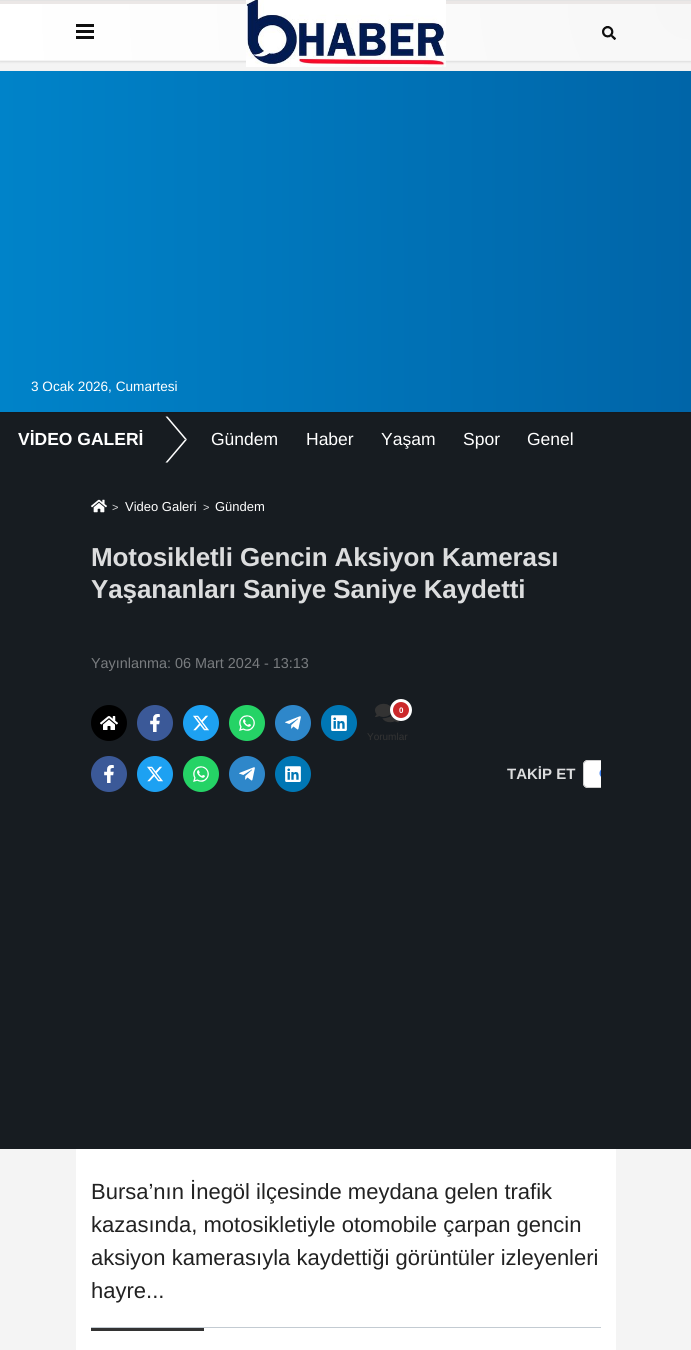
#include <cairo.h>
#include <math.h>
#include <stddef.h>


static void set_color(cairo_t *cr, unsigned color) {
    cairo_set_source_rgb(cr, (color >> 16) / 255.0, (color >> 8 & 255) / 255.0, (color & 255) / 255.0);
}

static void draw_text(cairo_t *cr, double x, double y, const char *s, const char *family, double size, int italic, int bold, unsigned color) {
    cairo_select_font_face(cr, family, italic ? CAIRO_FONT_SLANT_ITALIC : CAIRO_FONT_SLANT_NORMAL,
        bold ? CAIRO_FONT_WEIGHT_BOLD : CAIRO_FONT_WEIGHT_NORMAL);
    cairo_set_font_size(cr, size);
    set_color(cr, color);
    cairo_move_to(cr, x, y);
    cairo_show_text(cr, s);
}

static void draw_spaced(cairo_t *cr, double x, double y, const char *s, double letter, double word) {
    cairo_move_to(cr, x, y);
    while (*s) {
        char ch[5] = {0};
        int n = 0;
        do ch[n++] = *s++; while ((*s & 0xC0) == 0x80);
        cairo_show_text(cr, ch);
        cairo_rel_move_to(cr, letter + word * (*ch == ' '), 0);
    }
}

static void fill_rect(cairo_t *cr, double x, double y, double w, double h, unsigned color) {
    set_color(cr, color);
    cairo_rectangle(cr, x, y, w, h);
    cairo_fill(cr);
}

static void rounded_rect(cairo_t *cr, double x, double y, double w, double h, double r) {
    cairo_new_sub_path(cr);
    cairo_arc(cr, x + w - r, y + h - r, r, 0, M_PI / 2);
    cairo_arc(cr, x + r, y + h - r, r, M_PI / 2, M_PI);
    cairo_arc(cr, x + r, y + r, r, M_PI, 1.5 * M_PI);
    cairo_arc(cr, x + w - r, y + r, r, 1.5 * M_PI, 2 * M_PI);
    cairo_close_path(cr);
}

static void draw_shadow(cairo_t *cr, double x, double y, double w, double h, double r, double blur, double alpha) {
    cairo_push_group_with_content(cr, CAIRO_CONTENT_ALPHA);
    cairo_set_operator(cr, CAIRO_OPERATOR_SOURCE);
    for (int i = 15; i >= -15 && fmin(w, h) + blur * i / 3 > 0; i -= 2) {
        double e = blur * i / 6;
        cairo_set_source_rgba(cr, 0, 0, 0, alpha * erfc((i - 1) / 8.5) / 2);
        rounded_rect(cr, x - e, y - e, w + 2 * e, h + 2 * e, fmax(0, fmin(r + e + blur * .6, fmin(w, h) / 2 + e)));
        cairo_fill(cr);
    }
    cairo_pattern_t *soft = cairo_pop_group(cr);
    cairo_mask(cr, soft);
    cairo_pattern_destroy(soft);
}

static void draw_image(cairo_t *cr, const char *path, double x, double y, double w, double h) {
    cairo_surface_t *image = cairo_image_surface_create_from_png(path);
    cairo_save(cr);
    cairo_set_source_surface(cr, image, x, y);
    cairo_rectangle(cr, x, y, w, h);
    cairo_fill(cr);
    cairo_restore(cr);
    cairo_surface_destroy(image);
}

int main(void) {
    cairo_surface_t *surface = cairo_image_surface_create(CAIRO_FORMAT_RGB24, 691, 1350);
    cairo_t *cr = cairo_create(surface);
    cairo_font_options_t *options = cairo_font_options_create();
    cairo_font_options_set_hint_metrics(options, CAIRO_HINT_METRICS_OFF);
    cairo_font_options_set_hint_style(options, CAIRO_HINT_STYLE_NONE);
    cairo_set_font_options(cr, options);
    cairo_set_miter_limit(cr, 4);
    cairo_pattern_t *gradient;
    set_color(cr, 0xF4F4F4);
    cairo_paint(cr);
    fill_rect(cr, 0, 0, 691, 1, 0xE6E6E6);
    set_color(cr, 0x000000);
    draw_shadow(cr, 0, 2, 691, 60, 0, 1, 0.1);
    gradient = cairo_pattern_create_radial(691, 4, 0, 691, 4, 693);
    cairo_pattern_add_color_stop_rgba(gradient, 0, 0.969, 0.969, 0.969, 1);
    cairo_pattern_add_color_stop_rgba(gradient, 1, 1, 1, 1, 1);
    cairo_set_source(cr, gradient);
    cairo_pattern_destroy(gradient);
    cairo_rectangle(cr, 0, 4, 691, 56);
    cairo_fill(cr);
    fill_rect(cr, 0, 1, 691, 3, 0xEBE7E6);
    fill_rect(cr, 0, 60, 691, 1, 0xF5F5F5);
    fill_rect(cr, 76, 24, 18, 3, 0x0F0F0F);
    fill_rect(cr, 76, 30, 18, 3, 0x0F0F0F);
    fill_rect(cr, 76, 36, 18, 3, 0x0F0F0F);
    draw_image(cr, "assets/img1.png", 246, 0, 200, 67);
    draw_image(cr, "assets/img2.png", 602, 26, 14, 14);
    fill_rect(cr, 0, 412, 691, 737, 0x171C21);
    set_color(cr, 0x000000);
    draw_shadow(cr, 0, 72, 691, 341, 0, 1, 0.1);
    gradient = cairo_pattern_create_linear(0, 242, 691, 241);
    cairo_pattern_add_color_stop_rgba(gradient, 0, 0, 0.514, 0.788, 1);
    cairo_pattern_add_color_stop_rgba(gradient, 1, 0, 0.396, 0.659, 1);
    cairo_set_source(cr, gradient);
    cairo_pattern_destroy(gradient);
    cairo_rectangle(cr, 0, 71, 691, 341);
    cairo_fill(cr);
    draw_text(cr, 31, 391, "3 Ocak 2026, Cumartesi", "Liberation Sans", 13.6, 0, 0, 0xFFFFFF);
    draw_text(cr, 18, 445, "VİDEO GALERİ", "Liberation Sans", 17.5, 0, 1, 0xFFFFFF);
    cairo_new_path(cr);
    cairo_move_to(cr, 165.5, 416.5);
    cairo_line_to(cr, 167.5, 416.5);
    cairo_line_to(cr, 187, 439.5);
    cairo_line_to(cr, 185, 439.5);
    cairo_close_path(cr);
    cairo_fill(cr);
    cairo_new_path(cr);
    cairo_move_to(cr, 185, 439.5);
    cairo_line_to(cr, 187, 439.5);
    cairo_line_to(cr, 167.5, 462.5);
    cairo_line_to(cr, 165.5, 462.5);
    cairo_close_path(cr);
    cairo_fill(cr);
    draw_text(cr, 211, 445, "Gündem", "Liberation Sans", 17.5, 0, 0, 0xFFFFFF);
    draw_text(cr, 306, 445, "Haber", "Liberation Sans", 17.5, 0, 0, 0xFFFFFF);
    draw_text(cr, 381, 445, "Yaşam", "Liberation Sans", 17.5, 0, 0, 0xFFFFFF);
    draw_text(cr, 463, 445, "Spor", "Liberation Sans", 17.5, 0, 0, 0xFFFFFF);
    draw_text(cr, 527, 445, "Genel", "Liberation Sans", 17.5, 0, 0, 0xFFFFFF);
    draw_image(cr, "assets/img3.png", 91, 499, 16, 14);
    draw_text(cr, 112, 511, ">", "Liberation Sans", 11, 0, 0, 0xDCDDDE);
    draw_text(cr, 125, 511, "Video Galeri", "Liberation Sans", 13, 0, 0, 0xFFFFFF);
    draw_text(cr, 203, 511, ">", "Liberation Sans", 11, 0, 0, 0xDCDDDE);
    draw_text(cr, 215, 511, "Gündem", "Liberation Sans", 13, 0, 0, 0xFFFFFF);
    cairo_select_font_face(cr, "Liberation Sans", CAIRO_FONT_SLANT_NORMAL, CAIRO_FONT_WEIGHT_BOLD);
    cairo_set_font_size(cr, 26);
    set_color(cr, 0xDCDDDE);
    draw_spaced(cr, 91, 566, "Motosikletli Gencin Aksiyon Kamerası", -0.1, 0);
    draw_spaced(cr, 91, 598, "Yaşananları Saniye Saniye Kaydetti", -0.1, 0);
    draw_text(cr, 91, 668, "Yayınlanma: 06 Mart 2024 - 13:13", "Liberation Sans", 14.4, 0, 0, 0x797C7F);
    set_color(cr, 0x000000);
    cairo_new_path(cr);
    cairo_arc(cr, 109, 723, 18, 0, 2 * M_PI);
    cairo_fill(cr);
    draw_image(cr, "assets/img4.png", 100, 716, 18, 14);
    set_color(cr, 0x3B5998);
    cairo_arc(cr, 155, 723, 18, 0, 2 * M_PI);
    cairo_fill(cr);
    draw_image(cr, "assets/img5.png", 150, 714, 10, 18);
    set_color(cr, 0x1DA1F2);
    cairo_arc(cr, 201, 723, 18, 0, 2 * M_PI);
    cairo_fill(cr);
    draw_image(cr, "assets/img6.png", 193, 715, 16, 16);
    set_color(cr, 0x25D366);
    cairo_arc(cr, 247, 723, 18, 0, 2 * M_PI);
    cairo_fill(cr);
    draw_image(cr, "assets/img7.png", 239, 715, 16, 16);
    set_color(cr, 0x2E87CA);
    cairo_arc(cr, 293, 723, 18, 0, 2 * M_PI);
    cairo_fill(cr);
    draw_image(cr, "assets/img8.png", 285, 716, 16, 14);
    set_color(cr, 0x0077B5);
    cairo_arc(cr, 339, 723, 18, 0, 2 * M_PI);
    cairo_fill(cr);
    draw_image(cr, "assets/img9.png", 331, 715, 16, 16);
    draw_image(cr, "assets/img10.png", 375, 703, 24, 20);
    set_color(cr, 0xCC292B);
    cairo_arc(cr, 401, 710, 9.5, 0, 2 * M_PI);
    cairo_fill_preserve(cr);
    set_color(cr, 0xFFFFFF);
    cairo_set_line_width(cr, 3);
    cairo_stroke(cr);
    draw_text(cr, 399, 713, "0", "Liberation Sans", 8, 0, 1, 0xFFFFFF);
    draw_text(cr, 367, 740, "Yorumlar", "Liberation Sans", 10, 0, 0, 0x333333);
    set_color(cr, 0x3B5998);
    cairo_new_path(cr);
    cairo_arc(cr, 109, 774, 18, 0, 2 * M_PI);
    cairo_fill(cr);
    draw_image(cr, "assets/img5.png", 104, 765, 10, 18);
    set_color(cr, 0x1DA1F2);
    cairo_arc(cr, 155, 774, 18, 0, 2 * M_PI);
    cairo_fill(cr);
    draw_image(cr, "assets/img6.png", 147, 766, 16, 16);
    set_color(cr, 0x25D366);
    cairo_arc(cr, 201, 774, 18, 0, 2 * M_PI);
    cairo_fill(cr);
    draw_image(cr, "assets/img7.png", 193, 766, 16, 16);
    set_color(cr, 0x2E87CA);
    cairo_arc(cr, 247, 774, 18, 0, 2 * M_PI);
    cairo_fill(cr);
    draw_image(cr, "assets/img8.png", 239, 767, 16, 14);
    set_color(cr, 0x0077B5);
    cairo_arc(cr, 293, 774, 18, 0, 2 * M_PI);
    cairo_fill(cr);
    draw_image(cr, "assets/img9.png", 285, 766, 16, 16);
    draw_text(cr, 507, 779, "TAKİP ET", "Liberation Sans", 15, 0, 1, 0xDCDDDE);
    set_color(cr, 0xFFFFFF);
    cairo_new_path(cr);
    cairo_move_to(cr, 588, 760);
    cairo_line_to(cr, 601, 760);
    cairo_line_to(cr, 601, 788);
    cairo_line_to(cr, 588, 788);
    cairo_curve_to(cr, 585, 788, 583, 786, 583, 783);
    cairo_line_to(cr, 583, 765);
    cairo_curve_to(cr, 583, 762, 585, 760, 588, 760);
    cairo_close_path(cr);
    cairo_fill(cr);
    cairo_save(cr);
    cairo_rectangle(cr, 91, 752, 510, 43);
    cairo_clip(cr);
    rounded_rect(cr, 583.5, 760.5, 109, 27, 4.5);
    set_color(cr, 0xCCCCCC);
    cairo_set_line_width(cr, 1);
    cairo_stroke(cr);
    cairo_restore(cr);
    draw_image(cr, "assets/img11.png", 599, 769, 2, 8);
    fill_rect(cr, 76, 1149, 540, 201, 0xFFFFFF);
    draw_text(cr, 91, 1199, "Bursa’nın İnegöl ilçesinde meydana gelen trafik", "Liberation Sans", 22, 0, 0, 0x222222);
    draw_text(cr, 91, 1232, "kazasında, motosikletiyle otomobile çarpan gencin", "Liberation Sans", 22, 0, 0, 0x222222);
    draw_text(cr, 91, 1265, "aksiyon kamerasıyla kaydettiği görüntüler izleyenleri", "Liberation Sans", 22, 0, 0, 0x222222);
    draw_text(cr, 91, 1298, "hayre...", "Liberation Sans", 22, 0, 0, 0x222222);
    fill_rect(cr, 91, 1327, 510, 1, 0xC3CBD2);
    fill_rect(cr, 91, 1328, 113, 3, 0x333333);
    cairo_surface_write_to_png(surface, "output.png");
    cairo_font_options_destroy(options);
    cairo_destroy(cr);
    cairo_surface_destroy(surface);
    return 0;
}
